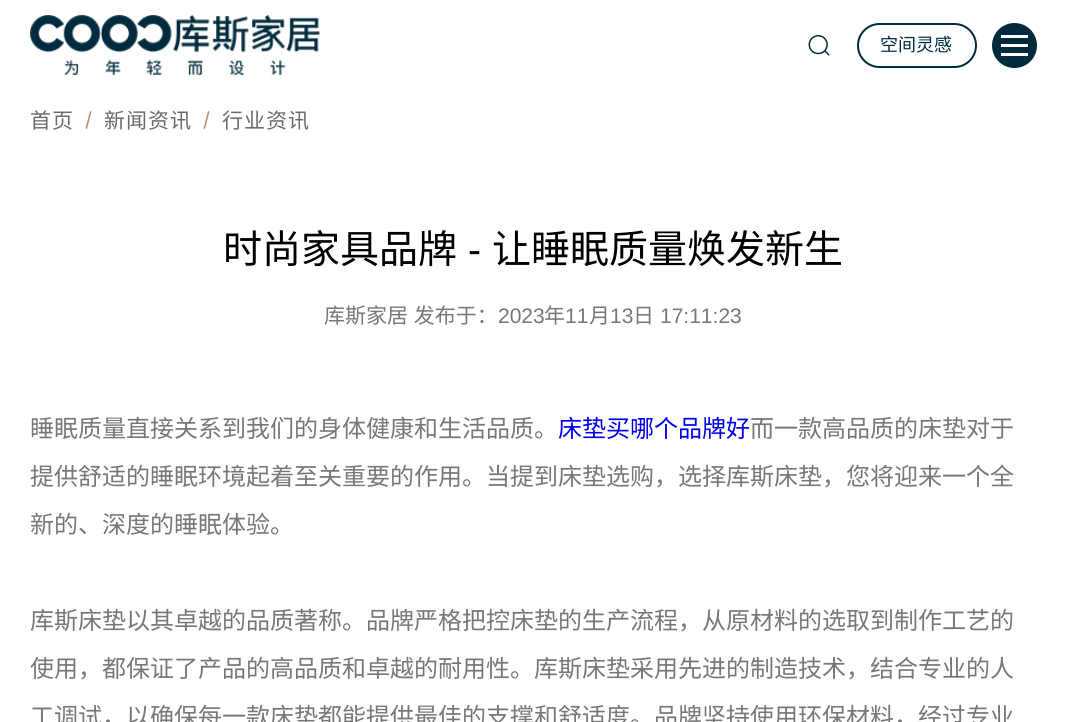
#include <cairo.h>
#include <math.h>
#include <stddef.h>


static void set_color(cairo_t *cr, unsigned color) {
    cairo_set_source_rgb(cr, (color >> 16) / 255.0, (color >> 8 & 255) / 255.0, (color & 255) / 255.0);
}

static void draw_text(cairo_t *cr, double x, double y, const char *s, const char *family, double size, int italic, int bold, unsigned color) {
    cairo_select_font_face(cr, family, italic ? CAIRO_FONT_SLANT_ITALIC : CAIRO_FONT_SLANT_NORMAL,
        bold ? CAIRO_FONT_WEIGHT_BOLD : CAIRO_FONT_WEIGHT_NORMAL);
    cairo_set_font_size(cr, size);
    set_color(cr, color);
    cairo_move_to(cr, x, y);
    cairo_show_text(cr, s);
}

static void draw_spaced(cairo_t *cr, double x, double y, const char *s, double letter, double word) {
    cairo_move_to(cr, x, y);
    while (*s) {
        char ch[5] = {0};
        int n = 0;
        do ch[n++] = *s++; while ((*s & 0xC0) == 0x80);
        cairo_show_text(cr, ch);
        cairo_rel_move_to(cr, letter + word * (*ch == ' '), 0);
    }
}

static void fill_rect(cairo_t *cr, double x, double y, double w, double h, unsigned color) {
    set_color(cr, color);
    cairo_rectangle(cr, x, y, w, h);
    cairo_fill(cr);
}

static void rounded_rect(cairo_t *cr, double x, double y, double w, double h, double r) {
    cairo_new_sub_path(cr);
    cairo_arc(cr, x + w - r, y + h - r, r, 0, M_PI / 2);
    cairo_arc(cr, x + r, y + h - r, r, M_PI / 2, M_PI);
    cairo_arc(cr, x + r, y + r, r, M_PI, 1.5 * M_PI);
    cairo_arc(cr, x + w - r, y + r, r, 1.5 * M_PI, 2 * M_PI);
    cairo_close_path(cr);
}

static void draw_image(cairo_t *cr, const char *path, double x, double y, double w, double h) {
    cairo_surface_t *image = cairo_image_surface_create_from_png(path);
    cairo_save(cr);
    cairo_set_source_surface(cr, image, x, y);
    cairo_rectangle(cr, x, y, w, h);
    cairo_fill(cr);
    cairo_restore(cr);
    cairo_surface_destroy(image);
}

int main(void) {
    cairo_surface_t *surface = cairo_image_surface_create(CAIRO_FORMAT_RGB24, 1066, 722);
    cairo_t *cr = cairo_create(surface);
    cairo_font_options_t *options = cairo_font_options_create();
    cairo_font_options_set_hint_metrics(options, CAIRO_HINT_METRICS_OFF);
    cairo_font_options_set_hint_style(options, CAIRO_HINT_STYLE_NONE);
    cairo_set_font_options(cr, options);
    cairo_set_miter_limit(cr, 4);
    set_color(cr, 0xFFFFFF);
    cairo_paint(cr);
    draw_image(cr, "assets/img1.png", 30, 15, 290, 60);
    draw_image(cr, "assets/img2.png", 808, 35, 22, 21);
    rounded_rect(cr, 858, 24, 118, 43, 21.5);
    set_color(cr, 0x002B3D);
    cairo_stroke(cr);
    draw_text(cr, 880, 51, "空间灵感", "Noto Sans CJK SC", 18, 0, 0, 0x002B3D);
    cairo_new_path(cr);
    cairo_arc(cr, 1014.5, 45.5, 22.5, 0, 2 * M_PI);
    cairo_fill(cr);
    fill_rect(cr, 1001, 35, 27, 3, 0xFFFFFF);
    fill_rect(cr, 1001, 44, 27, 3, 0xFFFFFF);
    fill_rect(cr, 1001, 53, 27, 3, 0xFFFFFF);
    cairo_set_font_size(cr, 21);
    set_color(cr, 0x6C6A67);
    draw_spaced(cr, 30, 128, "首页", 1, 0);
    set_color(cr, 0xB49167);
    cairo_new_path(cr);
    cairo_move_to(cr, 90, 111);
    cairo_line_to(cr, 91.5, 111.5);
    cairo_line_to(cr, 87, 129);
    cairo_line_to(cr, 85.5, 128.5);
    cairo_close_path(cr);
    cairo_fill(cr);
    set_color(cr, 0x6C6A67);
    draw_spaced(cr, 104, 128, "新闻资讯", 1, 0);
    set_color(cr, 0xB49167);
    cairo_new_path(cr);
    cairo_move_to(cr, 208, 111);
    cairo_line_to(cr, 209.5, 111.5);
    cairo_line_to(cr, 205, 129);
    cairo_line_to(cr, 203.5, 128.5);
    cairo_close_path(cr);
    cairo_fill(cr);
    set_color(cr, 0x6C6A67);
    draw_spaced(cr, 222, 128, "行业资讯", 1, 0);
    draw_text(cr, 223, 263, "时尚家具品牌", "Noto Sans CJK SC", 39, 0, 0, 0x000000);
    draw_text(cr, 468, 263, "-", "Liberation Sans", 39, 0, 0, 0x000000);
    draw_text(cr, 492, 263, "让睡眠质量焕发新生", "Noto Sans CJK SC", 39, 0, 0, 0x000000);
    cairo_set_font_size(cr, 21);
    set_color(cr, 0x777777);
    draw_spaced(cr, 324, 323, "库斯家居 发布于：", 0, 1);
    draw_text(cr, 498, 323, "2023", "Liberation Sans", 21, 0, 0, 0x777777);
    draw_text(cr, 544, 323, "年", "Noto Sans CJK SC", 21, 0, 0, 0x777777);
    draw_text(cr, 565, 323, "11", "Liberation Sans", 21, 0, 0, 0x777777);
    draw_text(cr, 589, 323, "月", "Noto Sans CJK SC", 21, 0, 0, 0x777777);
    draw_text(cr, 610, 323, "13", "Liberation Sans", 21, 0, 0, 0x777777);
    draw_text(cr, 633, 323, "日", "Noto Sans CJK SC", 21, 0, 0, 0x777777);
    draw_text(cr, 660, 323, "17:11:23", "Liberation Sans", 21, 0, 0, 0x777777);
    draw_text(cr, 30, 437, "睡眠质量直接关系到我们的身体健康和生活品质。", "Noto Sans CJK SC", 24, 0, 0, 0x777777);
    draw_text(cr, 558, 437, "床垫买哪个品牌好", "Noto Sans CJK SC", 24, 0, 0, 0x0000EE);
    draw_text(cr, 750, 437, "而一款高品质的床垫对于", "Noto Sans CJK SC", 24, 0, 0, 0x777777);
    draw_text(cr, 30, 485, "提供舒适的睡眠环境起着至关重要的作用。当提到床垫选购，选择库斯床垫，您将迎来一个全", "Noto Sans CJK SC", 24, 0, 0, 0x777777);
    draw_text(cr, 30, 533, "新的、深度的睡眠体验。", "Noto Sans CJK SC", 24, 0, 0, 0x777777);
    draw_text(cr, 30, 629, "库斯床垫以其卓越的品质著称。品牌严格把控床垫的生产流程，从原材料的选取到制作工艺的", "Noto Sans CJK SC", 24, 0, 0, 0x777777);
    draw_text(cr, 30, 677, "使用，都保证了产品的高品质和卓越的耐用性。库斯床垫采用先进的制造技术，结合专业的人", "Noto Sans CJK SC", 24, 0, 0, 0x777777);
    draw_text(cr, 30, 725, "工调试，以确保每一款床垫都能提供最佳的支撑和舒适度。品牌坚持使用环保材料，经过专业", "Noto Sans CJK SC", 24, 0, 0, 0x777777);
    cairo_surface_write_to_png(surface, "output.png");
    cairo_font_options_destroy(options);
    cairo_destroy(cr);
    cairo_surface_destroy(surface);
    return 0;
}
